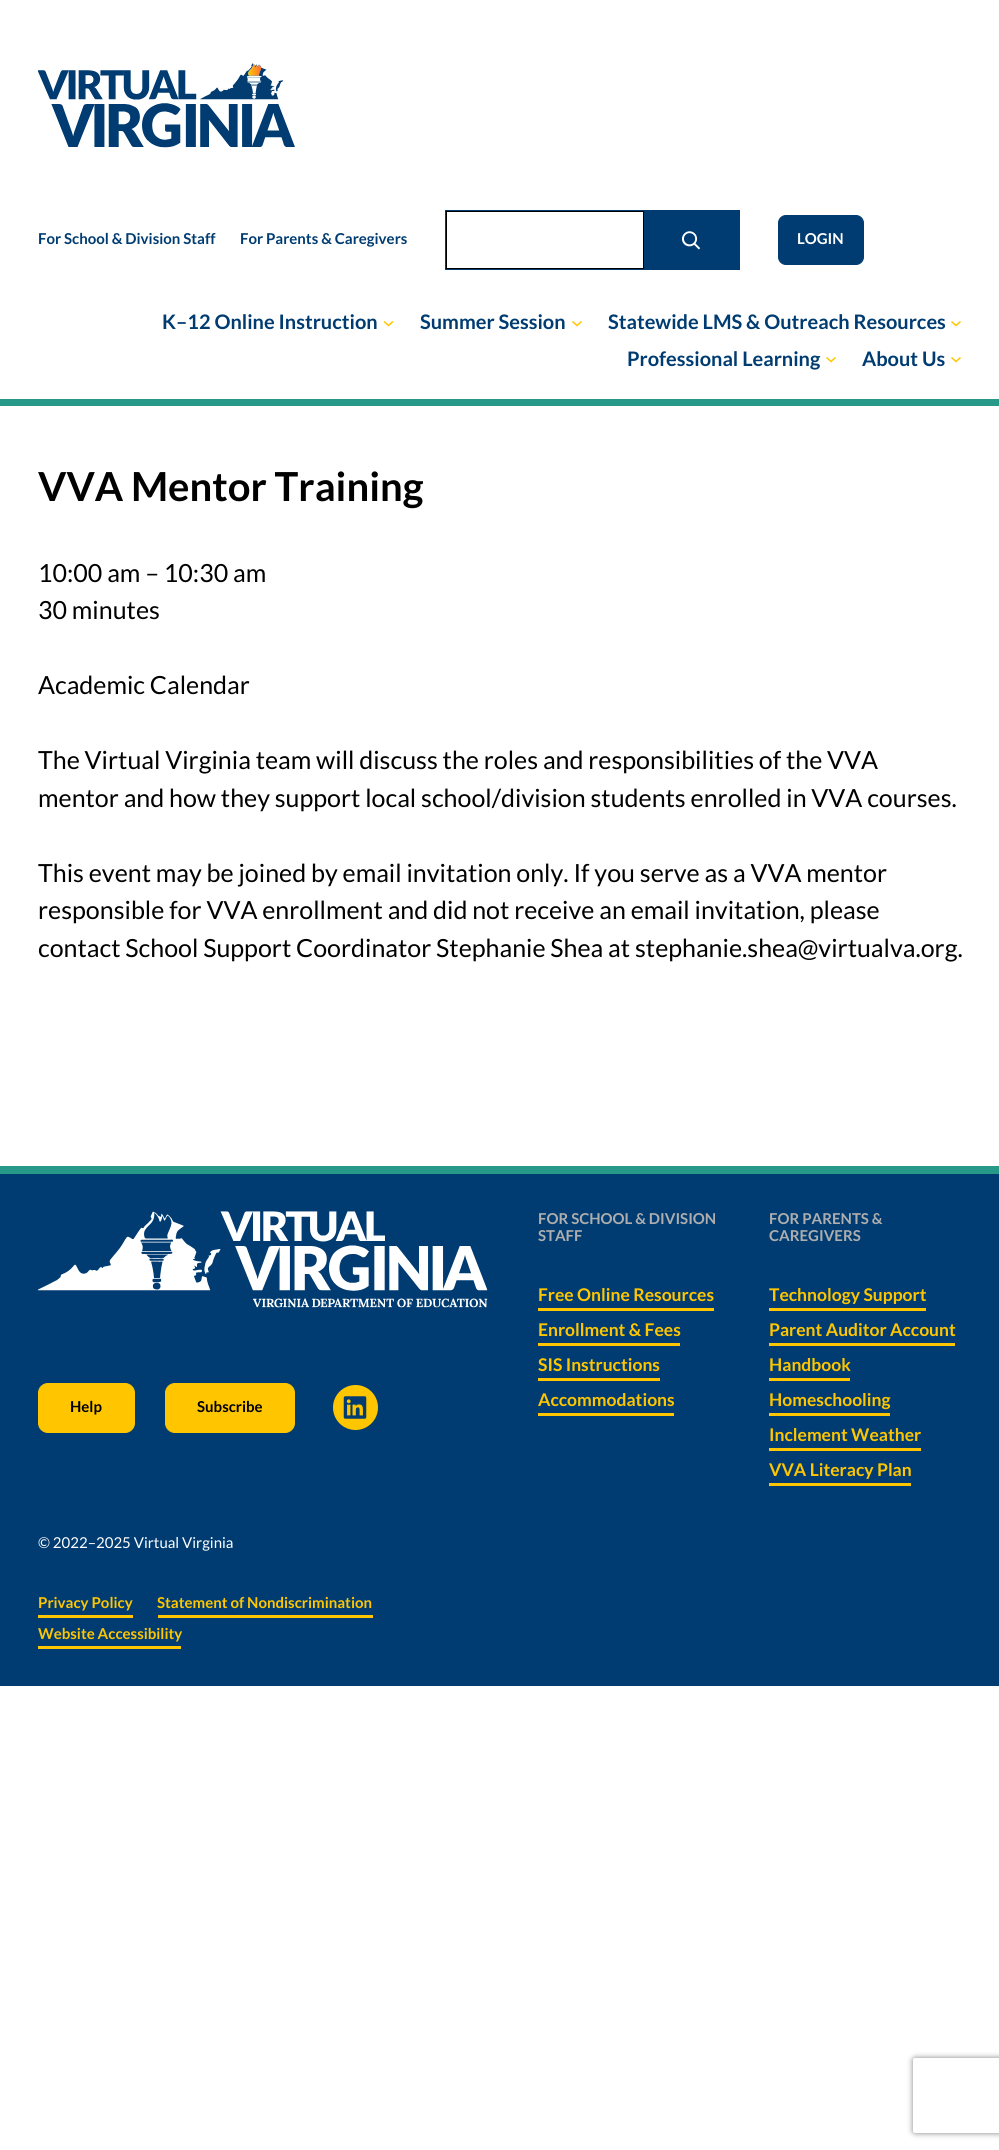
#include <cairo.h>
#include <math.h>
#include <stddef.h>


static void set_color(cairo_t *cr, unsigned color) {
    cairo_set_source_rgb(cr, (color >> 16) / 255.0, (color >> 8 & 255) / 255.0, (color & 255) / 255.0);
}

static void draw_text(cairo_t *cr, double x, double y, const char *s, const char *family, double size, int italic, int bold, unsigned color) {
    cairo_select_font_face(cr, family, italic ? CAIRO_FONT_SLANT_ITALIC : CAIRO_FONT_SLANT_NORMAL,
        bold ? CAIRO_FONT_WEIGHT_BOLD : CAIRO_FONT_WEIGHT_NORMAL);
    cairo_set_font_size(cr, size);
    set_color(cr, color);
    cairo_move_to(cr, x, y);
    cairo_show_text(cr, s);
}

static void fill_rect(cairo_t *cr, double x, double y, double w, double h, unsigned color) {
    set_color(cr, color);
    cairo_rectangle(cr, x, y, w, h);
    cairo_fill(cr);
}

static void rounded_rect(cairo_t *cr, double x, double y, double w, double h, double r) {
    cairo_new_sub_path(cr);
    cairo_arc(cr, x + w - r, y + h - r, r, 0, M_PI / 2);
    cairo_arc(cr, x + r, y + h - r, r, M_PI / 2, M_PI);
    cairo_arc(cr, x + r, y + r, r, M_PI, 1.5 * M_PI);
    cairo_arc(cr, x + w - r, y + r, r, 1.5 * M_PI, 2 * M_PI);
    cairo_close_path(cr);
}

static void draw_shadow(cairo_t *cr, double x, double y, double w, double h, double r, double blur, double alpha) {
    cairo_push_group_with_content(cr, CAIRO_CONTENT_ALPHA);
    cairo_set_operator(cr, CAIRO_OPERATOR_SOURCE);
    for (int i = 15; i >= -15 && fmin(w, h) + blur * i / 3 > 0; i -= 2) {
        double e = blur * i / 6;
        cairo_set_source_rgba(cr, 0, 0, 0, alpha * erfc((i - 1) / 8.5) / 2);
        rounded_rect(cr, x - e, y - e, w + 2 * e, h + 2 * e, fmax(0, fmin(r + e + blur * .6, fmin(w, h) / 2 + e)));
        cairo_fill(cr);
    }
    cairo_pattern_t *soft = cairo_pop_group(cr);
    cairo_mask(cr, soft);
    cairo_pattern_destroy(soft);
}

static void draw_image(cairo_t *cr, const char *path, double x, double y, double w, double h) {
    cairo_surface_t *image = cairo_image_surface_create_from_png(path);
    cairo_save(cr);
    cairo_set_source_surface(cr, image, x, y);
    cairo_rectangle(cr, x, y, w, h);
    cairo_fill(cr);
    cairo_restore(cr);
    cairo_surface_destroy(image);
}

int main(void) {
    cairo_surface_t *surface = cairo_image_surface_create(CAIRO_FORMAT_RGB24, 999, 2150);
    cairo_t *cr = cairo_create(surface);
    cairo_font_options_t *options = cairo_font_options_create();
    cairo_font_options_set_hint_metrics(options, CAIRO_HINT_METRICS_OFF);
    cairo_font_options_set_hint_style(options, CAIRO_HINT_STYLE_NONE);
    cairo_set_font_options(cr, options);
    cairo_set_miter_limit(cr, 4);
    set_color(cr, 0xFFFFFF);
    cairo_paint(cr);
    fill_rect(cr, 0, 399, 999, 7, 0x279989);
    draw_image(cr, "assets/img1.png", 38, 63, 257, 85);
    draw_text(cr, 38, 244, "For School & Division Staff", "Lato", 15, 0, 1, 0x003C71);
    draw_text(cr, 240, 244, "For Parents & Caregivers", "Lato", 15, 0, 1, 0x003C71);
    cairo_rectangle(cr, 445.5, 210.5, 294, 59);
    cairo_set_line_width(cr, 1);
    cairo_stroke(cr);
    cairo_rectangle(cr, 446.5, 211.5, 197, 57);
    set_color(cr, 0x000000);
    cairo_stroke(cr);
    fill_rect(cr, 644, 211, 95, 58, 0x003C71);
    draw_image(cr, "assets/img2.png", 682, 231, 19, 19);
    rounded_rect(cr, 778.5, 215.5, 85, 49, 7.5);
    cairo_fill_preserve(cr);
    cairo_stroke(cr);
    draw_text(cr, 797, 244, "LOGIN", "Lato", 15, 0, 1, 0xFFFFFF);
    draw_text(cr, 162, 329, "K–12 Online Instruction", "Lato", 20, 0, 1, 0x003C71);
    cairo_new_path(cr);
    cairo_move_to(cr, 384, 321.5);
    cairo_line_to(cr, 388.5, 325.5);
    cairo_line_to(cr, 393, 321.5);
    set_color(cr, 0xFFC600);
    cairo_set_line_width(cr, 1.5);
    cairo_stroke(cr);
    draw_text(cr, 420, 329, "Summer Session", "Lato", 20, 0, 1, 0x003C71);
    cairo_new_path(cr);
    cairo_move_to(cr, 572.5, 321.5);
    cairo_line_to(cr, 577, 325.5);
    cairo_line_to(cr, 581.5, 321.5);
    set_color(cr, 0xFFC600);
    cairo_stroke(cr);
    draw_text(cr, 608, 329, "Statewide LMS & Outreach Resources", "Lato", 20, 0, 1, 0x003C71);
    cairo_new_path(cr);
    cairo_move_to(cr, 951.5, 321.5);
    cairo_line_to(cr, 956, 325.5);
    cairo_line_to(cr, 960.5, 321.5);
    set_color(cr, 0xFFC600);
    cairo_stroke(cr);
    draw_text(cr, 627, 366, "Professional Learning", "Lato", 20, 0, 1, 0x003C71);
    cairo_new_path(cr);
    cairo_move_to(cr, 826.5, 357.5);
    cairo_line_to(cr, 831, 361.5);
    cairo_line_to(cr, 835.5, 357.5);
    set_color(cr, 0xFFC600);
    cairo_stroke(cr);
    draw_text(cr, 862, 366, "About Us", "Lato", 20, 0, 1, 0x003C71);
    cairo_new_path(cr);
    cairo_move_to(cr, 951.5, 357.5);
    cairo_line_to(cr, 956, 361.5);
    cairo_line_to(cr, 960.5, 357.5);
    set_color(cr, 0xFFC600);
    cairo_stroke(cr);
    draw_text(cr, 38, 501, "VVA Mentor Training", "Lato", 40, 0, 1, 0x000000);
    draw_text(cr, 38, 582, "10:00 am – 10:30 am", "Lato", 25, 0, 0, 0x000000);
    draw_text(cr, 38, 619, "30 minutes", "Lato", 25, 0, 0, 0x000000);
    draw_text(cr, 38, 694, "Academic Calendar", "Lato", 25, 0, 0, 0x000000);
    draw_text(cr, 38, 769, "The Virtual Virginia team will discuss the roles and responsibilities of the VVA", "Lato", 25, 0, 0, 0x000000);
    draw_text(cr, 38, 807, "mentor and how they support local school/division students enrolled in VVA courses.", "Lato", 25, 0, 0, 0x000000);
    draw_text(cr, 38, 882, "This event may be joined by email invitation only. If you serve as a VVA mentor", "Lato", 25, 0, 0, 0x000000);
    draw_text(cr, 38, 919, "responsible for VVA enrollment and did not receive an email invitation, please", "Lato", 25, 0, 0, 0x000000);
    draw_text(cr, 38, 957, "contact School Support Coordinator Stephanie Shea at stephanie.shea@virtualva.org.", "Lato", 25, 0, 0, 0x000000);
    fill_rect(cr, 0, 1174, 999, 512, 0x003C71);
    fill_rect(cr, 0, 1166, 999, 8, 0x279989);
    draw_text(cr, 538, 1224, "FOR SCHOOL & DIVISION", "Lato", 15, 0, 1, 0xAEAEAE);
    draw_text(cr, 538, 1241, "STAFF", "Lato", 15, 0, 1, 0xAEAEAE);
    fill_rect(cr, 538, 1308, 176, 3, 0xFFC600);
    draw_text(cr, 538, 1301, "Free Online Resources", "Lato", 17.5, 0, 1, 0xFFC600);
    fill_rect(cr, 538, 1343, 142, 3, 0xFFC600);
    draw_text(cr, 538, 1336, "Enrollment & Fees", "Lato", 17.5, 0, 1, 0xFFC600);
    fill_rect(cr, 538, 1378, 122, 3, 0xFFC600);
    draw_text(cr, 538, 1371, "SIS Instructions", "Lato", 17.5, 0, 1, 0xFFC600);
    fill_rect(cr, 538, 1413, 136, 3, 0xFFC600);
    draw_text(cr, 538, 1406, "Accommodations", "Lato", 17.5, 0, 1, 0xFFC600);
    draw_text(cr, 769, 1224, "FOR PARENTS &", "Lato", 15, 0, 1, 0xAEAEAE);
    draw_text(cr, 769, 1241, "CAREGIVERS", "Lato", 15, 0, 1, 0xAEAEAE);
    fill_rect(cr, 769, 1308, 157, 3, 0xFFC600);
    draw_text(cr, 769, 1301, "Technology Support", "Lato", 17.5, 0, 1, 0xFFC600);
    fill_rect(cr, 769, 1343, 186, 3, 0xFFC600);
    draw_text(cr, 769, 1336, "Parent Auditor Account", "Lato", 17.5, 0, 1, 0xFFC600);
    fill_rect(cr, 769, 1378, 81, 3, 0xFFC600);
    draw_text(cr, 769, 1371, "Handbook", "Lato", 17.5, 0, 1, 0xFFC600);
    fill_rect(cr, 769, 1413, 121, 3, 0xFFC600);
    draw_text(cr, 769, 1406, "Homeschooling", "Lato", 17.5, 0, 1, 0xFFC600);
    fill_rect(cr, 769, 1448, 152, 3, 0xFFC600);
    draw_text(cr, 769, 1441, "Inclement Weather", "Lato", 17.5, 0, 1, 0xFFC600);
    fill_rect(cr, 769, 1483, 142, 3, 0xFFC600);
    draw_text(cr, 769, 1476, "VVA Literacy Plan", "Lato", 17.5, 0, 1, 0xFFC600);
    draw_image(cr, "assets/img3.png", 38, 1211, 450, 97);
    rounded_rect(cr, 38.5, 1383.5, 96, 49, 9.5);
    cairo_fill_preserve(cr);
    cairo_set_line_width(cr, 1);
    cairo_stroke(cr);
    draw_text(cr, 70, 1412, "Help", "Lato", 15, 0, 1, 0x000000);
    set_color(cr, 0xFFC600);
    rounded_rect(cr, 165.5, 1383.5, 129, 49, 9.5);
    cairo_fill_preserve(cr);
    cairo_stroke(cr);
    draw_text(cr, 197, 1412, "Subscribe", "Lato", 15, 0, 1, 0x000000);
    set_color(cr, 0xFFC600);
    cairo_new_path(cr);
    cairo_arc(cr, 355.5, 1407.5, 22.5, 0, 2 * M_PI);
    cairo_fill(cr);
    draw_image(cr, "assets/img4.png", 343, 1396, 24, 23);
    draw_text(cr, 38, 1548, "© 2022–2025 Virtual Virginia", "Lato", 15, 0, 0, 0xFFFFFF);
    fill_rect(cr, 38, 1615, 95, 3, 0xFFC600);
    draw_text(cr, 38, 1608, "Privacy Policy", "Lato", 15, 0, 1, 0xFFC600);
    fill_rect(cr, 158, 1615, 215, 3, 0xFFC600);
    draw_text(cr, 157, 1608, "Statement of Nondiscrimination", "Lato", 15, 0, 1, 0xFFC600);
    fill_rect(cr, 38, 1646, 143, 3, 0xFFC600);
    draw_text(cr, 38, 1639, "Website Accessibility", "Lato", 15, 0, 1, 0xFFC600);
    cairo_save(cr);
    cairo_set_fill_rule(cr, CAIRO_FILL_RULE_EVEN_ODD);
    cairo_new_path(cr);
    cairo_move_to(cr, 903, 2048);
    cairo_line_to(cr, 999, 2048);
    cairo_line_to(cr, 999, 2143);
    cairo_line_to(cr, 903, 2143);
    cairo_close_path(cr);
    cairo_move_to(cr, 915.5, 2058);
    cairo_line_to(cr, 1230.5, 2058);
    cairo_curve_to(cr, 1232, 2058, 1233, 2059, 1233, 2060.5);
    cairo_line_to(cr, 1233, 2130.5);
    cairo_curve_to(cr, 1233, 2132, 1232, 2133, 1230.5, 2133);
    cairo_line_to(cr, 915.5, 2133);
    cairo_curve_to(cr, 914, 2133, 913, 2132, 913, 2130.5);
    cairo_line_to(cr, 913, 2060.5);
    cairo_curve_to(cr, 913, 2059, 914, 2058, 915.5, 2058);
    cairo_close_path(cr);
    cairo_clip(cr);
    set_color(cr, 0x808080);
    draw_shadow(cr, 913, 2058, 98, 75, 2.5, 3, 1);
    cairo_restore(cr);
    cairo_surface_write_to_png(surface, "output.png");
    cairo_font_options_destroy(options);
    cairo_destroy(cr);
    cairo_surface_destroy(surface);
    return 0;
}
